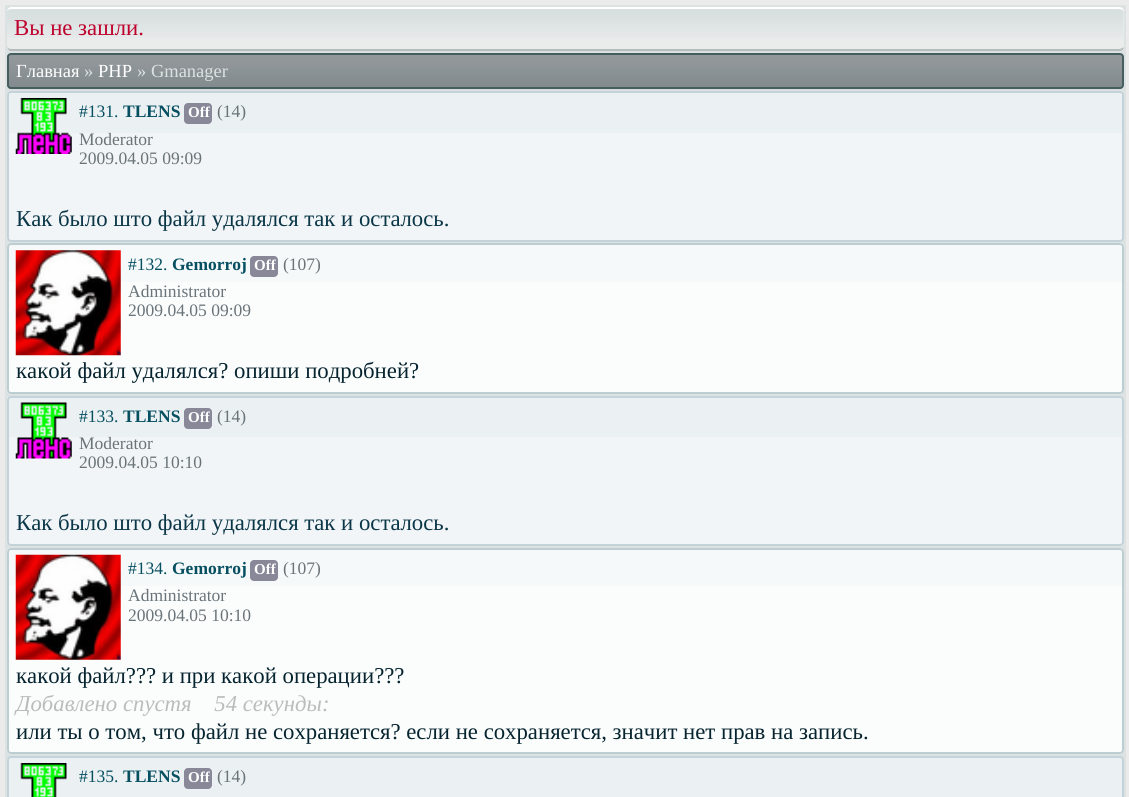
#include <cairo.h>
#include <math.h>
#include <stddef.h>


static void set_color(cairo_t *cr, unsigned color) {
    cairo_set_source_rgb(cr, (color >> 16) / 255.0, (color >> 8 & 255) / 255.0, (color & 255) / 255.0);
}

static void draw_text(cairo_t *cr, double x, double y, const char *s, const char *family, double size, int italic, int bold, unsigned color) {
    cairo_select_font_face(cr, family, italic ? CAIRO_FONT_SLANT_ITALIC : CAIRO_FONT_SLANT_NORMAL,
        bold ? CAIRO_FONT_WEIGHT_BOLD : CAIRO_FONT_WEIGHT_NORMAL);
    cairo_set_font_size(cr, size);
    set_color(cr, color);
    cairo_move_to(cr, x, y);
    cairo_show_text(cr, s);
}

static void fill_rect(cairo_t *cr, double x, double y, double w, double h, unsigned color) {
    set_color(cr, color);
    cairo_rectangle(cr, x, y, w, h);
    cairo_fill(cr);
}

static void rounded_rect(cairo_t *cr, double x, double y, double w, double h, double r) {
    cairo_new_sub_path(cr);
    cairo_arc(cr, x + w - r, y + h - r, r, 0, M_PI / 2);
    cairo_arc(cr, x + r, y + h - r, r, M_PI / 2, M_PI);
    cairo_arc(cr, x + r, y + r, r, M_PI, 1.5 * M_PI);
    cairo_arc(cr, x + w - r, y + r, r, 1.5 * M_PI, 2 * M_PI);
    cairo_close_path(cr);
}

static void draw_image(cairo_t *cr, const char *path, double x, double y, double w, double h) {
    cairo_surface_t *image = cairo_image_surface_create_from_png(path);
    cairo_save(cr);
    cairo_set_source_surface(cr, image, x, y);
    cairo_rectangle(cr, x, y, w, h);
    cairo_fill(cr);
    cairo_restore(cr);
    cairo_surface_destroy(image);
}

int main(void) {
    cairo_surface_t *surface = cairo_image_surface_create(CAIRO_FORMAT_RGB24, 1129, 797);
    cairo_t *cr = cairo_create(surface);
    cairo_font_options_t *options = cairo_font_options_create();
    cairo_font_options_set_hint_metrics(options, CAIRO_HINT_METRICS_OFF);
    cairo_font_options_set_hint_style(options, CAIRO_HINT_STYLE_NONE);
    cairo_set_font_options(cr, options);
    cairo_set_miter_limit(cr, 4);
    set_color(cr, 0xDCE1E2);
    cairo_paint(cr);
    cairo_rectangle(cr, 2.5, 2.5, 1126, 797);
    set_color(cr, 0xEBEBEB);
    cairo_set_line_width(cr, 5);
    cairo_stroke(cr);
    set_color(cr, 0xEAECEC);
    rounded_rect(cr, 7, 7, 1117, 44, 4);
    cairo_fill(cr);
    draw_image(cr, "assets/img1.png", 7, 8, 1117, 30);
    set_color(cr, 0xFFFFFF);
    cairo_new_path(cr);
    cairo_move_to(cr, 12, 7);
    cairo_curve_to(cr, 9, 7, 7, 9, 7, 12);
    cairo_curve_to(cr, 7, 10, 9, 9, 12, 9);
    cairo_line_to(cr, 1119, 9);
    cairo_curve_to(cr, 1120, 9, 1123, 10, 1124, 11);
    cairo_curve_to(cr, 1124, 9, 1121, 7, 1119, 7);
    cairo_close_path(cr);
    cairo_fill(cr);
    set_color(cr, 0xB6BCBC);
    cairo_new_path(cr);
    cairo_move_to(cr, 10, 51);
    cairo_curve_to(cr, 8, 50, 7, 48, 7, 46);
    cairo_curve_to(cr, 7, 48, 9, 49, 12, 49);
    cairo_line_to(cr, 1119, 49);
    cairo_curve_to(cr, 1120, 49, 1123, 48, 1124, 47);
    cairo_curve_to(cr, 1124, 49, 1122, 51, 1120, 51);
    cairo_close_path(cr);
    cairo_fill(cr);
    draw_text(cr, 14, 35, "Вы не зашли.", "Liberation Serif", 22.75, 0, 0, 0xBE012C);
    draw_image(cr, "assets/img2.png", 7, 54, 1117, 36);
    rounded_rect(cr, 8, 54, 1115, 34, 3);
    set_color(cr, 0x475E61);
    cairo_set_line_width(cr, 2);
    cairo_stroke(cr);
    draw_text(cr, 16, 77, "Главная", "Liberation Serif", 18.5, 0, 0, 0xFFFFFF);
    draw_text(cr, 84, 77, "»", "Liberation Serif", 18.5, 0, 0, 0xDCE2E2);
    draw_text(cr, 98, 77, "PHP", "Liberation Serif", 18.5, 0, 0, 0xFFFFFF);
    draw_text(cr, 137, 77, "» Gmanager", "Liberation Serif", 18.5, 0, 0, 0xDCE2E2);
    set_color(cr, 0xF2F5F7);
    rounded_rect(cr, 7, 91, 1117, 151, 4);
    cairo_fill(cr);
    fill_rect(cr, 7, 93, 1115, 40, 0xEBF1F3);
    rounded_rect(cr, 8, 92, 1115, 149, 3);
    set_color(cr, 0xC4D2D9);
    cairo_stroke(cr);
    draw_image(cr, "assets/img3.png", 15, 98, 57, 56);
    draw_text(cr, 79, 117, "#131.", "Liberation Serif", 17.5, 0, 0, 0x054F61);
    draw_text(cr, 123, 117, "TLENS", "Liberation Serif", 17.5, 0, 1, 0x054F61);
    set_color(cr, 0x888899);
    rounded_rect(cr, 184, 103, 28, 21, 4);
    cairo_fill(cr);
    draw_text(cr, 188, 117, "Off", "Liberation Serif", 15, 0, 1, 0xFFFFFF);
    draw_text(cr, 217, 117, "(14)", "Liberation Serif", 17.5, 0, 0, 0x697378);
    draw_text(cr, 79, 145, "Moderator", "Liberation Serif", 17.5, 0, 0, 0x697378);
    draw_text(cr, 79, 164, "2009.04.05 09:09", "Liberation Serif", 17.5, 0, 0, 0x697378);
    draw_text(cr, 16, 226, "Как было што файл удалялся так и осталось.", "Liberation Serif", 22.75, 0, 0, 0x0A3647);
    set_color(cr, 0xFBFDFD);
    rounded_rect(cr, 7, 243, 1117, 151, 4);
    cairo_fill(cr);
    fill_rect(cr, 7, 245, 1115, 37, 0xF6F9F9);
    rounded_rect(cr, 8, 244, 1115, 149, 3);
    set_color(cr, 0xBDCED2);
    cairo_stroke(cr);
    draw_image(cr, "assets/img4.png", 15, 250, 106, 106);
    draw_text(cr, 128, 270, "#132.", "Liberation Serif", 17.5, 0, 0, 0x054F61);
    draw_text(cr, 172, 270, "Gemorroj", "Liberation Serif", 17.5, 0, 1, 0x054F61);
    set_color(cr, 0x888899);
    rounded_rect(cr, 250, 256, 28, 21, 4);
    cairo_fill(cr);
    draw_text(cr, 254, 270, "Off", "Liberation Serif", 15, 0, 1, 0xFFFFFF);
    draw_text(cr, 283, 270, "(107)", "Liberation Serif", 17.5, 0, 0, 0x697378);
    draw_text(cr, 128, 297, "Administrator", "Liberation Serif", 17.5, 0, 0, 0x697378);
    draw_text(cr, 128, 316, "2009.04.05 09:09", "Liberation Serif", 17.5, 0, 0, 0x697378);
    draw_text(cr, 16, 378, "какой файл удалялся? опиши подробней?", "Liberation Serif", 22.75, 0, 0, 0x06242F);
    set_color(cr, 0xF2F5F7);
    rounded_rect(cr, 7, 396, 1117, 150, 4);
    cairo_fill(cr);
    fill_rect(cr, 7, 397, 1116, 40, 0xEBF1F3);
    rounded_rect(cr, 8, 397, 1115, 148, 3);
    set_color(cr, 0xC4D2D9);
    cairo_stroke(cr);
    draw_image(cr, "assets/img5.png", 15, 402, 57, 57);
    draw_text(cr, 79, 422, "#133.", "Liberation Serif", 17.5, 0, 0, 0x054F61);
    draw_text(cr, 123, 422, "TLENS", "Liberation Serif", 17.5, 0, 1, 0x054F61);
    set_color(cr, 0x888899);
    rounded_rect(cr, 184, 408, 28, 21, 4);
    cairo_fill(cr);
    draw_text(cr, 188, 422, "Off", "Liberation Serif", 15, 0, 1, 0xFFFFFF);
    draw_text(cr, 217, 422, "(14)", "Liberation Serif", 17.5, 0, 0, 0x697378);
    draw_text(cr, 79, 449, "Moderator", "Liberation Serif", 17.5, 0, 0, 0x697378);
    draw_text(cr, 79, 468, "2009.04.05 10:10", "Liberation Serif", 17.5, 0, 0, 0x697378);
    draw_text(cr, 16, 530, "Как было што файл удалялся так и осталось.", "Liberation Serif", 22.75, 0, 0, 0x0A3647);
    set_color(cr, 0xFBFDFD);
    rounded_rect(cr, 7, 548, 1117, 206, 4);
    cairo_fill(cr);
    fill_rect(cr, 7, 550, 1115, 36, 0xF6F9F9);
    rounded_rect(cr, 8, 549, 1115, 204, 3);
    set_color(cr, 0xBDCED2);
    cairo_stroke(cr);
    draw_image(cr, "assets/img6.png", 15, 554, 106, 106);
    draw_text(cr, 128, 574, "#134.", "Liberation Serif", 17.5, 0, 0, 0x054F61);
    draw_text(cr, 172, 574, "Gemorroj", "Liberation Serif", 17.5, 0, 1, 0x054F61);
    set_color(cr, 0x888899);
    rounded_rect(cr, 250, 560, 28, 21, 4);
    cairo_fill(cr);
    draw_text(cr, 254, 574, "Off", "Liberation Serif", 15, 0, 1, 0xFFFFFF);
    draw_text(cr, 283, 574, "(107)", "Liberation Serif", 17.5, 0, 0, 0x697378);
    draw_text(cr, 128, 601, "Administrator", "Liberation Serif", 17.5, 0, 0, 0x697378);
    draw_text(cr, 128, 621, "2009.04.05 10:10", "Liberation Serif", 17.5, 0, 0, 0x697378);
    draw_text(cr, 16, 683, "какой файл?\077? и при какой операции?\077?", "Liberation Serif", 22.75, 0, 0, 0x06242F);
    draw_text(cr, 16, 711, "Добавлено спустя    54 секунды:", "Liberation Serif", 22.75, 1, 0, 0xBBBBBB);
    draw_text(cr, 16, 739, "или ты о том, что файл не сохраняется? если не сохраняется, значит нет прав на запись.", "Liberation Serif", 22.75, 0, 0, 0x06242F);
    fill_rect(cr, 7, 758, 1115, 39, 0xEBF1F3);
    rounded_rect(cr, 8, 757, 1115, 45, 3);
    set_color(cr, 0xC4D2D9);
    cairo_stroke(cr);
    draw_image(cr, "assets/img7.png", 20, 763, 47, 34);
    draw_text(cr, 79, 782, "#135.", "Liberation Serif", 17.5, 0, 0, 0x054F61);
    draw_text(cr, 123, 782, "TLENS", "Liberation Serif", 17.5, 0, 1, 0x054F61);
    set_color(cr, 0x888899);
    rounded_rect(cr, 184, 768, 28, 21, 4);
    cairo_fill(cr);
    draw_text(cr, 188, 782, "Off", "Liberation Serif", 15, 0, 1, 0xFFFFFF);
    draw_text(cr, 217, 782, "(14)", "Liberation Serif", 17.5, 0, 0, 0x697378);
    cairo_surface_write_to_png(surface, "output.png");
    cairo_font_options_destroy(options);
    cairo_destroy(cr);
    cairo_surface_destroy(surface);
    return 0;
}
